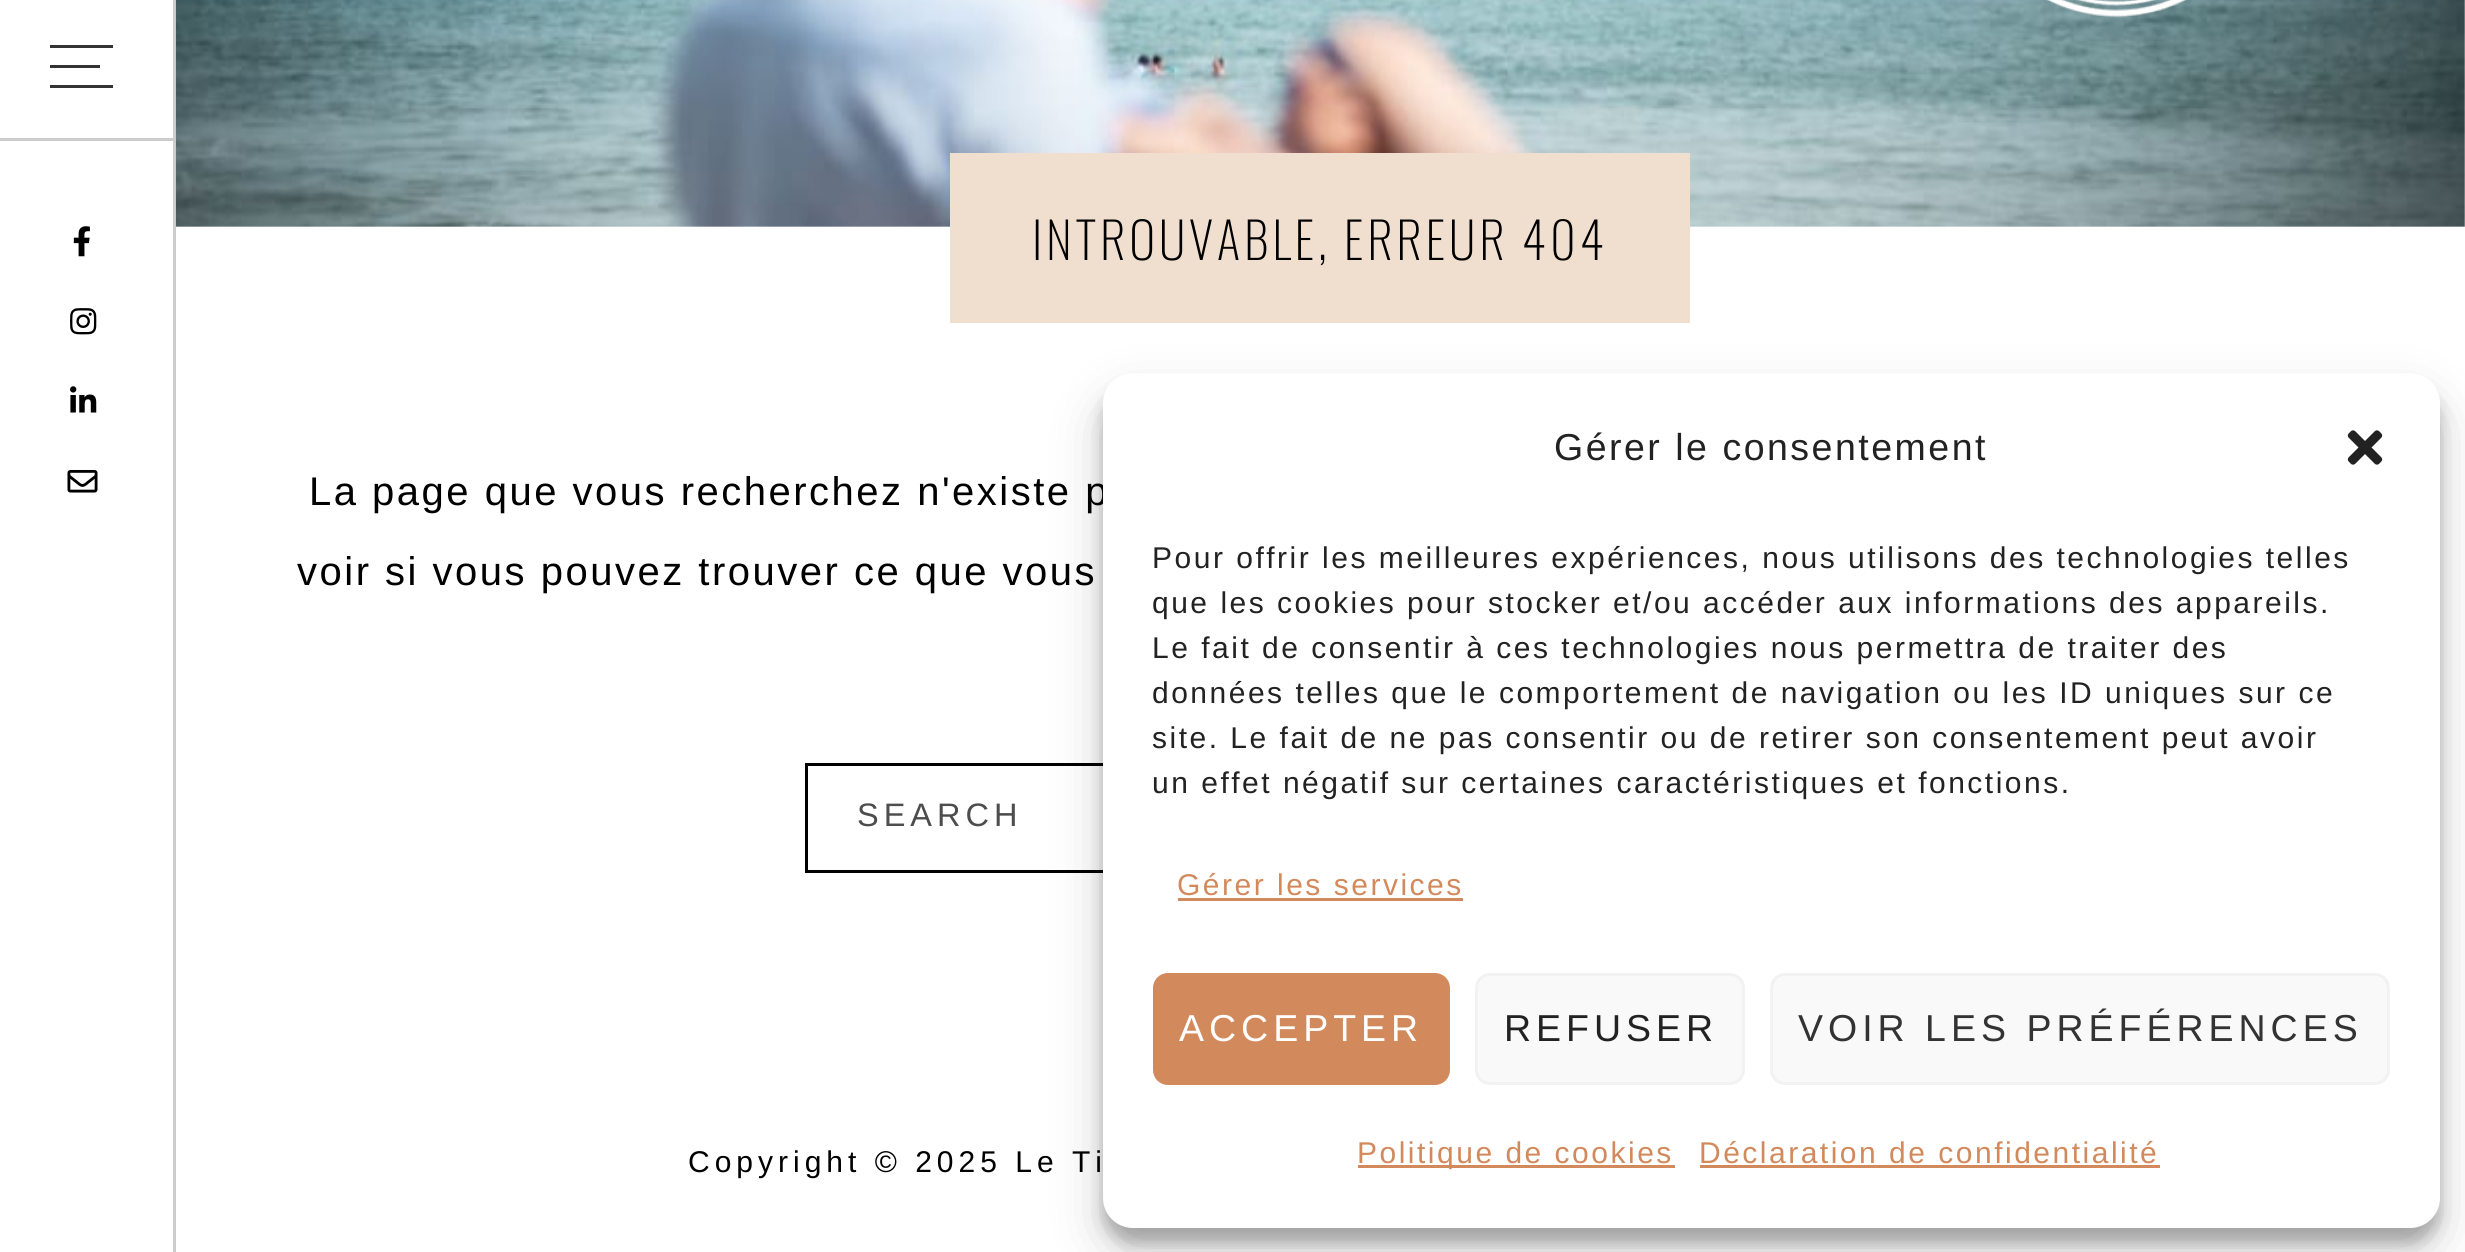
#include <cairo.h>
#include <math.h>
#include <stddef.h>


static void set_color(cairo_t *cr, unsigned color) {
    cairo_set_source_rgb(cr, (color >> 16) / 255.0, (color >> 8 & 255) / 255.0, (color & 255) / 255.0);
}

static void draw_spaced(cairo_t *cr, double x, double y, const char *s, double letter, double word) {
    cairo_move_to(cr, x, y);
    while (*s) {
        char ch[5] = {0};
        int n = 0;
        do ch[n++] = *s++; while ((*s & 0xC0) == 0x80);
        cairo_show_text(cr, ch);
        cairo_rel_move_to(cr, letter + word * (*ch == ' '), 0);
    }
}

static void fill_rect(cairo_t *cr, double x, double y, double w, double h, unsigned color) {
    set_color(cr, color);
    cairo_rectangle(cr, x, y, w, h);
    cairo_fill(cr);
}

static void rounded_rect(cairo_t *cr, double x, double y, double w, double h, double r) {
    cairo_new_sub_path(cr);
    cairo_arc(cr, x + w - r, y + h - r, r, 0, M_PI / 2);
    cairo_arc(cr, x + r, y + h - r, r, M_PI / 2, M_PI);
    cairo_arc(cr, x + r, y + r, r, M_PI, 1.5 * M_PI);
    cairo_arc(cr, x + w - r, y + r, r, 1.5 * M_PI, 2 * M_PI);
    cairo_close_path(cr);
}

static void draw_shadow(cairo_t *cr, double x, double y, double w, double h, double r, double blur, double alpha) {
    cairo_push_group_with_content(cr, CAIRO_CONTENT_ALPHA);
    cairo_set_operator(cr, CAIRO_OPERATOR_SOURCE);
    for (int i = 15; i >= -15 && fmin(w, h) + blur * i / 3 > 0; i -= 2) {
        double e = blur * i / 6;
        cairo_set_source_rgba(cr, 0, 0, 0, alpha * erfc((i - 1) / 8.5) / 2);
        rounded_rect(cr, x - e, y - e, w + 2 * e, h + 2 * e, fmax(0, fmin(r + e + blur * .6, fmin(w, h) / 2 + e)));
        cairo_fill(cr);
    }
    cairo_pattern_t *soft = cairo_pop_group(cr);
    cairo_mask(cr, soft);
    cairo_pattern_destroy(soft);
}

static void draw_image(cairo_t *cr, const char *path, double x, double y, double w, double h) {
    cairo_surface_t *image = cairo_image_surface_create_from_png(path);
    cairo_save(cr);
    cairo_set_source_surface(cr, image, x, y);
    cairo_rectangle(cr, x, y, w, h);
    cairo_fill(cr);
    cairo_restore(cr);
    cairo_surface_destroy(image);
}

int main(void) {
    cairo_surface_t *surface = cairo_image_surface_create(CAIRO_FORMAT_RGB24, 2465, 1252);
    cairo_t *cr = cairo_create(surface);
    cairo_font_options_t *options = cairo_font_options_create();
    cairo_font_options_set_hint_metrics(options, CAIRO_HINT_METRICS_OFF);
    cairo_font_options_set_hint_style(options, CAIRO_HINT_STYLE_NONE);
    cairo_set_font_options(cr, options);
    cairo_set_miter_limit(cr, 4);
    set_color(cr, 0xFFFFFF);
    cairo_paint(cr);
    fill_rect(cr, 173, 0, 3, 1252, 0xCCCCCC);
    fill_rect(cr, 0, 138, 173, 3, 0xCCCCCC);
    fill_rect(cr, 50, 45, 63, 3, 0x333333);
    fill_rect(cr, 50, 65, 50, 3, 0x333333);
    fill_rect(cr, 50, 85, 63, 3, 0x333333);
    draw_image(cr, "assets/img1.png", 73, 226, 17, 31);
    draw_image(cr, "assets/img2.png", 70, 308, 27, 27);
    draw_image(cr, "assets/img3.png", 70, 386, 27, 27);
    draw_image(cr, "assets/img4.png", 67, 470, 31, 23);
    draw_image(cr, "assets/img5.png", 176, 0, 2289, 227);
    draw_image(cr, "assets/img6.png", 2046, 0, 141, 18);
    fill_rect(cr, 950, 153, 740, 170, 0xF0DECE);
    cairo_select_font_face(cr, "Oswald ExtraLight", CAIRO_FONT_SLANT_NORMAL, CAIRO_FONT_WEIGHT_NORMAL);
    cairo_set_font_size(cr, 50);
    set_color(cr, 0x000000);
    draw_spaced(cr, 1032, 260, "INTROUVABLE, ERREUR 404", 3.75, 0);
    cairo_select_font_face(cr, "Liberation Sans", CAIRO_FONT_SLANT_NORMAL, CAIRO_FONT_WEIGHT_NORMAL);
    cairo_set_font_size(cr, 40);
    draw_spaced(cr, 309, 505, "La page que vous recherchez n'existe p", 2.5, 0);
    draw_spaced(cr, 297, 585, "voir si vous pouvez trouver ce que vous", 2.5, 0);
    cairo_rectangle(cr, 806.5, 764.5, 822, 107);
    cairo_set_line_width(cr, 3);
    cairo_stroke(cr);
    cairo_set_font_size(cr, 32.5);
    set_color(cr, 0x4D4D4D);
    draw_spaced(cr, 857, 826, "SEARCH", 5, 0);
    cairo_set_font_size(cr, 30);
    set_color(cr, 0x000000);
    draw_spaced(cr, 688, 1172, "Copyright © 2025 Le Ti", 5, 0);
    set_color(cr, 0x000000);
    draw_shadow(cr, 1103, 388, 1337, 855, 30, 7.5, 0.23);
    draw_shadow(cr, 1103, 398, 1337, 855, 30, 25, 0.19);
    set_color(cr, 0xFFFFFF);
    rounded_rect(cr, 1103, 373, 1337, 855, 30);
    cairo_fill(cr);
    cairo_set_font_size(cr, 37.5);
    set_color(cr, 0x222222);
    draw_spaced(cr, 1554, 460, "Gérer le consentement", 2.5, 0);
    draw_image(cr, "assets/img7.png", 2347, 430, 36, 35);
    cairo_set_font_size(cr, 30);
    draw_spaced(cr, 1152, 568, "Pour offrir les meilleures expériences, nous utilisons des technologies telles", 2.5, 0);
    draw_spaced(cr, 1152, 613, "que les cookies pour stocker et/ou accéder aux informations des appareils.", 2.5, 0);
    draw_spaced(cr, 1152, 658, "Le fait de consentir à ces technologies nous permettra de traiter des", 2.5, 0);
    draw_spaced(cr, 1152, 703, "données telles que le comportement de navigation ou les ID uniques sur ce", 2.5, 0);
    draw_spaced(cr, 1152, 748, "site. Le fait de ne pas consentir ou de retirer son consentement peut avoir", 2.5, 0);
    draw_spaced(cr, 1152, 793, "un effet négatif sur certaines caractéristiques et fonctions.", 2.5, 0);
    set_color(cr, 0xD28A5C);
    draw_spaced(cr, 1177, 895, "Gérer les services", 2.5, 0);
    fill_rect(cr, 1178, 898, 285, 3, 0xD28A5C);
    rounded_rect(cr, 1154.5, 974.5, 294, 109, 13.5);
    cairo_fill_preserve(cr);
    cairo_stroke(cr);
    cairo_set_font_size(cr, 37.5);
    set_color(cr, 0xFFFFFF);
    draw_spaced(cr, 1179, 1041, "ACCEPTER", 5, 0);
    set_color(cr, 0xF9F9F9);
    rounded_rect(cr, 1476.5, 974.5, 267, 109, 13.5);
    cairo_fill_preserve(cr);
    set_color(cr, 0xF2F2F2);
    cairo_stroke(cr);
    set_color(cr, 0x222222);
    draw_spaced(cr, 1504, 1041, "REFUSER", 5, 0);
    set_color(cr, 0xF9F9F9);
    rounded_rect(cr, 1771.5, 974.5, 617, 109, 13.5);
    cairo_fill_preserve(cr);
    set_color(cr, 0xF2F2F2);
    cairo_stroke(cr);
    set_color(cr, 0x333333);
    draw_spaced(cr, 1798, 1041, "VOIR LES PRÉFÉRENCES", 5, 0);
    fill_rect(cr, 1358, 1165, 317, 3, 0xD28A5C);
    cairo_set_font_size(cr, 30);
    draw_spaced(cr, 1357, 1163, "Politique de cookies", 2.5, 0);
    draw_spaced(cr, 1699, 1163, "Déclaration de confidentialité", 2.5, 0);
    fill_rect(cr, 1700, 1165, 460, 3, 0xD28A5C);
    cairo_surface_write_to_png(surface, "output.png");
    cairo_font_options_destroy(options);
    cairo_destroy(cr);
    cairo_surface_destroy(surface);
    return 0;
}
